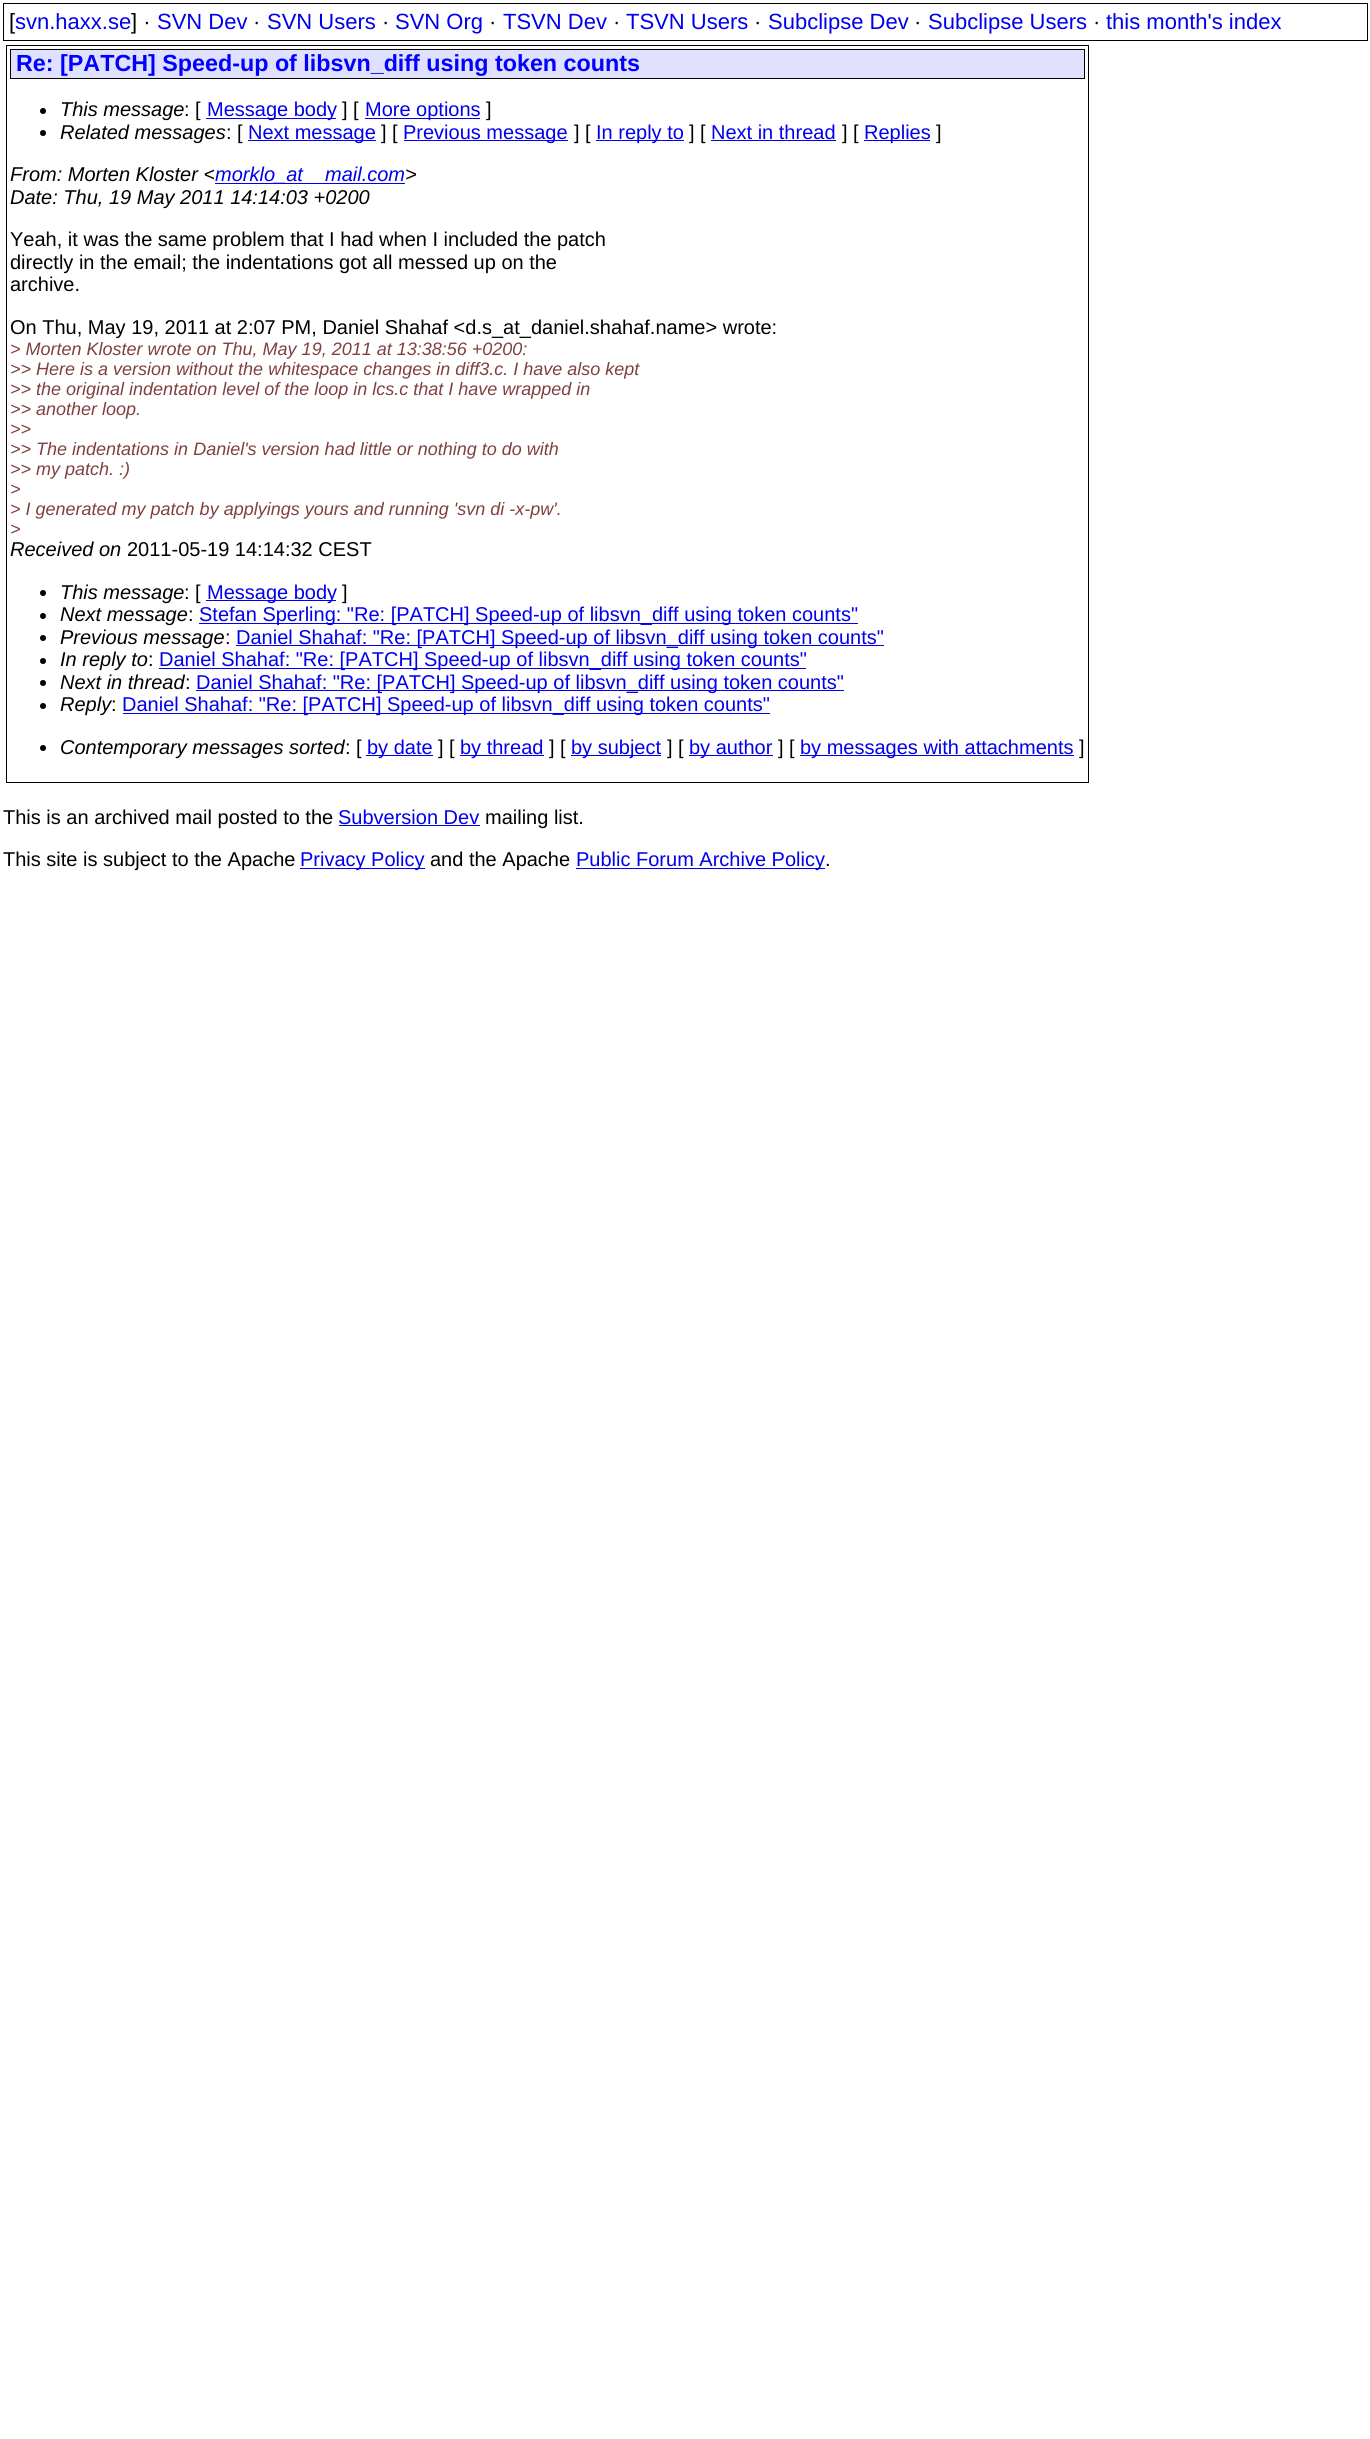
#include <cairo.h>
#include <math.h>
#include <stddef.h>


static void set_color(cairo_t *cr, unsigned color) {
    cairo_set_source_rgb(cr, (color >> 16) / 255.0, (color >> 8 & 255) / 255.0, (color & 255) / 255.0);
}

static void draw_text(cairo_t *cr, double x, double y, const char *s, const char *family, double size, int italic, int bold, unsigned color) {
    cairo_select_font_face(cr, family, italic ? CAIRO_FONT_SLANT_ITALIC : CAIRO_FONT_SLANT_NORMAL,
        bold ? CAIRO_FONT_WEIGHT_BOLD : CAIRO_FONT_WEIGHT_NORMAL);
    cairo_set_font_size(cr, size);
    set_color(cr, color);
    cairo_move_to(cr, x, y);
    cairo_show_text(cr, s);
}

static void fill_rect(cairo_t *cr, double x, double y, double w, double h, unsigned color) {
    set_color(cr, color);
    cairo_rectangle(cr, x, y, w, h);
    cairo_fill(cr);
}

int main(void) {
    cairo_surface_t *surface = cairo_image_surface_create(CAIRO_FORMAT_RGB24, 1370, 2439);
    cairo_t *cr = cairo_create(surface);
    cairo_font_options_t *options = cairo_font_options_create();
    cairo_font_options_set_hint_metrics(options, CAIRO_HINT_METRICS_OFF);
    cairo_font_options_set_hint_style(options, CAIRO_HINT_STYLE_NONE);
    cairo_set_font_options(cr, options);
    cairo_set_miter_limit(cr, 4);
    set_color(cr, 0xFFFFFF);
    cairo_paint(cr);
    cairo_rectangle(cr, 3.5, 3.5, 1364, 37);
    set_color(cr, 0x000000);
    cairo_set_line_width(cr, 1);
    cairo_stroke(cr);
    draw_text(cr, 9, 29, "[", "Liberation Sans", 22, 0, 0, 0x000000);
    draw_text(cr, 15, 29, "svn.haxx.se", "Liberation Sans", 22, 0, 0, 0x0000EE);
    draw_text(cr, 131, 29, "] ·", "Liberation Sans", 22, 0, 0, 0x000000);
    draw_text(cr, 157, 29, "SVN Dev", "Liberation Sans", 22, 0, 0, 0x0000EE);
    draw_text(cr, 253, 29, "·", "Liberation Sans", 22, 0, 0, 0x000000);
    draw_text(cr, 267, 29, "SVN Users", "Liberation Sans", 22, 0, 0, 0x0000EE);
    draw_text(cr, 382, 29, "·", "Liberation Sans", 22, 0, 0, 0x000000);
    draw_text(cr, 395, 29, "SVN Org", "Liberation Sans", 22, 0, 0, 0x0000EE);
    draw_text(cr, 489, 29, "·", "Liberation Sans", 22, 0, 0, 0x000000);
    draw_text(cr, 503, 29, "TSVN Dev", "Liberation Sans", 22, 0, 0, 0x0000EE);
    draw_text(cr, 613, 29, "·", "Liberation Sans", 22, 0, 0, 0x000000);
    draw_text(cr, 626, 29, "TSVN Users", "Liberation Sans", 22, 0, 0, 0x0000EE);
    draw_text(cr, 754, 29, "·", "Liberation Sans", 22, 0, 0, 0x000000);
    draw_text(cr, 768, 29, "Subclipse Dev", "Liberation Sans", 22, 0, 0, 0x0000EE);
    draw_text(cr, 914, 29, "·", "Liberation Sans", 22, 0, 0, 0x000000);
    draw_text(cr, 928, 29, "Subclipse Users", "Liberation Sans", 22, 0, 0, 0x0000EE);
    draw_text(cr, 1093, 29, "·", "Liberation Sans", 22, 0, 0, 0x000000);
    draw_text(cr, 1106, 29, "this month's index", "Liberation Sans", 22, 0, 0, 0x0000EE);
    cairo_rectangle(cr, 6.5, 45.5, 1082, 737);
    set_color(cr, 0x000000);
    cairo_stroke(cr);
    set_color(cr, 0xE0E0FF);
    cairo_rectangle(cr, 10.5, 49.5, 1074, 29);
    cairo_fill_preserve(cr);
    set_color(cr, 0x000000);
    cairo_stroke(cr);
    draw_text(cr, 16, 71, "Re: [PATCH] Speed-up of libsvn_diff using token counts", "Liberation Sans", 23.3, 0, 1, 0x0000FF);
    set_color(cr, 0x000000);
    cairo_new_path(cr);
    cairo_arc(cr, 43, 111, 3, 0, 2 * M_PI);
    cairo_fill(cr);
    draw_text(cr, 60, 116, "This message", "Liberation Sans", 20, 1, 0, 0x000000);
    draw_text(cr, 184, 116, ": [", "Liberation Sans", 20, 0, 0, 0x000000);
    fill_rect(cr, 206, 118, 130, 1, 0x0000EE);
    draw_text(cr, 207, 116, "Message body", "Liberation Sans", 20, 0, 0, 0x0000EE);
    draw_text(cr, 342, 116, "] [", "Liberation Sans", 20, 0, 0, 0x000000);
    fill_rect(cr, 365, 118, 115, 1, 0x0000EE);
    draw_text(cr, 365, 116, "More options", "Liberation Sans", 20, 0, 0, 0x0000EE);
    draw_text(cr, 486, 116, "]", "Liberation Sans", 20, 0, 0, 0x000000);
    cairo_new_path(cr);
    cairo_arc(cr, 43, 133, 3, 0, 2 * M_PI);
    cairo_fill(cr);
    draw_text(cr, 60, 139, "Related messages", "Liberation Sans", 20, 1, 0, 0x000000);
    draw_text(cr, 226, 139, ": [", "Liberation Sans", 20, 0, 0, 0x000000);
    fill_rect(cr, 248, 140, 128, 1, 0x0000EE);
    draw_text(cr, 248, 139, "Next message", "Liberation Sans", 20, 0, 0, 0x0000EE);
    draw_text(cr, 381, 139, "] [", "Liberation Sans", 20, 0, 0, 0x000000);
    fill_rect(cr, 404, 140, 164, 1, 0x0000EE);
    draw_text(cr, 403, 139, "Previous message", "Liberation Sans", 20, 0, 0, 0x0000EE);
    draw_text(cr, 574, 139, "] [", "Liberation Sans", 20, 0, 0, 0x000000);
    fill_rect(cr, 596, 140, 88, 1, 0x0000EE);
    draw_text(cr, 596, 139, "In reply to", "Liberation Sans", 20, 0, 0, 0x0000EE);
    draw_text(cr, 689, 139, "] [", "Liberation Sans", 20, 0, 0, 0x000000);
    draw_text(cr, 711, 139, "Next in thread", "Liberation Sans", 20, 0, 0, 0x0000EE);
    fill_rect(cr, 711, 140, 125, 1, 0x0000EE);
    draw_text(cr, 842, 139, "] [", "Liberation Sans", 20, 0, 0, 0x000000);
    fill_rect(cr, 864, 140, 66, 1, 0x0000EE);
    draw_text(cr, 864, 139, "Replies", "Liberation Sans", 20, 0, 0, 0x0000EE);
    draw_text(cr, 936, 139, "]", "Liberation Sans", 20, 0, 0, 0x000000);
    draw_text(cr, 10, 181, "From: Morten Kloster <", "Liberation Sans", 20, 1, 0, 0x000000);
    fill_rect(cr, 215, 183, 190, 1, 0x0000EE);
    draw_text(cr, 215, 181, "morklo_at", "Liberation Sans", 20, 1, 0, 0x0000EE);
    draw_text(cr, 325, 181, "mail.com", "Liberation Sans", 20, 1, 0, 0x0000EE);
    draw_text(cr, 405, 181, ">", "Liberation Sans", 20, 1, 0, 0x000000);
    draw_text(cr, 10, 204, "Date: Thu, 19 May 2011 14:14:03 +0200", "Liberation Sans", 20, 1, 0, 0x000000);
    draw_text(cr, 10, 246, "Yeah, it was the same problem that I had when I included the patch", "Liberation Sans", 20, 0, 0, 0x000000);
    draw_text(cr, 10, 269, "directly in the email; the indentations got all messed up on the", "Liberation Sans", 20, 0, 0, 0x000000);
    draw_text(cr, 10, 291, "archive.", "Liberation Sans", 20, 0, 0, 0x000000);
    draw_text(cr, 10, 334, "On Thu, May 19, 2011 at 2:07 PM, Daniel Shahaf <d.s_at_daniel.shahaf.name> wrote:", "Liberation Sans", 20, 0, 0, 0x000000);
    draw_text(cr, 10, 355, "> Morten Kloster wrote on Thu, May 19, 2011 at 13:38:56 +0200:", "Liberation Sans", 18, 1, 0, 0x804040);
    draw_text(cr, 10, 375, ">> Here is a version without the whitespace changes in diff3.c. I have also kept", "Liberation Sans", 18, 1, 0, 0x804040);
    draw_text(cr, 10, 395, ">> the original indentation level of the loop in lcs.c that I have wrapped in", "Liberation Sans", 18, 1, 0, 0x804040);
    draw_text(cr, 10, 415, ">> another loop.", "Liberation Sans", 18, 1, 0, 0x804040);
    draw_text(cr, 10, 435, ">>", "Liberation Sans", 18, 1, 0, 0x804040);
    draw_text(cr, 10, 455, ">> The indentations in Daniel's version had little or nothing to do with", "Liberation Sans", 18, 1, 0, 0x804040);
    draw_text(cr, 10, 475, ">> my patch. :)", "Liberation Sans", 18, 1, 0, 0x804040);
    draw_text(cr, 10, 495, ">", "Liberation Sans", 18, 1, 0, 0x804040);
    draw_text(cr, 10, 515, "> I generated my patch by applyings yours and running 'svn di -x-pw'.", "Liberation Sans", 18, 1, 0, 0x804040);
    draw_text(cr, 10, 535, ">", "Liberation Sans", 18, 1, 0, 0x804040);
    draw_text(cr, 10, 556, "Received on", "Liberation Sans", 20, 1, 0, 0x000000);
    draw_text(cr, 127, 556, "2011-05-19 14:14:32 CEST", "Liberation Sans", 20, 0, 0, 0x000000);
    cairo_new_path(cr);
    cairo_arc(cr, 43, 593, 3, 0, 2 * M_PI);
    cairo_fill(cr);
    draw_text(cr, 60, 599, "This message", "Liberation Sans", 20, 1, 0, 0x000000);
    draw_text(cr, 184, 599, ": [", "Liberation Sans", 20, 0, 0, 0x000000);
    fill_rect(cr, 206, 600, 130, 1, 0x0000EE);
    draw_text(cr, 207, 599, "Message body", "Liberation Sans", 20, 0, 0, 0x0000EE);
    draw_text(cr, 342, 599, "]", "Liberation Sans", 20, 0, 0, 0x000000);
    cairo_new_path(cr);
    cairo_arc(cr, 43, 616, 3, 0, 2 * M_PI);
    cairo_fill(cr);
    draw_text(cr, 60, 621, "Next message", "Liberation Sans", 20, 1, 0, 0x000000);
    draw_text(cr, 188, 621, ":", "Liberation Sans", 20, 0, 0, 0x000000);
    fill_rect(cr, 199, 623, 659, 1, 0x0000EE);
    draw_text(cr, 199, 621, "Stefan Sperling: \"Re: [PATCH] Speed-up of libsvn_diff using token counts\"", "Liberation Sans", 20, 0, 0, 0x0000EE);
    set_color(cr, 0x000000);
    cairo_new_path(cr);
    cairo_arc(cr, 43, 638, 3, 0, 2 * M_PI);
    cairo_fill(cr);
    draw_text(cr, 60, 644, "Previous message", "Liberation Sans", 20, 1, 0, 0x000000);
    draw_text(cr, 225, 644, ":", "Liberation Sans", 20, 0, 0, 0x000000);
    fill_rect(cr, 236, 645, 648, 1, 0x0000EE);
    draw_text(cr, 236, 644, "Daniel Shahaf: \"Re: [PATCH] Speed-up of libsvn_diff using token counts\"", "Liberation Sans", 20, 0, 0, 0x0000EE);
    set_color(cr, 0x000000);
    cairo_new_path(cr);
    cairo_arc(cr, 43, 661, 3, 0, 2 * M_PI);
    cairo_fill(cr);
    draw_text(cr, 60, 666, "In reply to", "Liberation Sans", 20, 1, 0, 0x000000);
    draw_text(cr, 148, 666, ":", "Liberation Sans", 20, 0, 0, 0x000000);
    fill_rect(cr, 159, 668, 647, 1, 0x0000EE);
    draw_text(cr, 159, 666, "Daniel Shahaf: \"Re: [PATCH] Speed-up of libsvn_diff using token counts\"", "Liberation Sans", 20, 0, 0, 0x0000EE);
    set_color(cr, 0x000000);
    cairo_new_path(cr);
    cairo_arc(cr, 43, 683, 3, 0, 2 * M_PI);
    cairo_fill(cr);
    draw_text(cr, 60, 689, "Next in thread", "Liberation Sans", 20, 1, 0, 0x000000);
    draw_text(cr, 185, 689, ":", "Liberation Sans", 20, 0, 0, 0x000000);
    fill_rect(cr, 196, 690, 648, 1, 0x0000EE);
    draw_text(cr, 196, 689, "Daniel Shahaf: \"Re: [PATCH] Speed-up of libsvn_diff using token counts\"", "Liberation Sans", 20, 0, 0, 0x0000EE);
    set_color(cr, 0x000000);
    cairo_new_path(cr);
    cairo_arc(cr, 43, 706, 3, 0, 2 * M_PI);
    cairo_fill(cr);
    draw_text(cr, 60, 711, "Reply", "Liberation Sans", 20, 1, 0, 0x000000);
    draw_text(cr, 111, 711, ":", "Liberation Sans", 20, 0, 0, 0x000000);
    fill_rect(cr, 123, 713, 647, 1, 0x0000EE);
    draw_text(cr, 122, 711, "Daniel Shahaf: \"Re: [PATCH] Speed-up of libsvn_diff using token counts\"", "Liberation Sans", 20, 0, 0, 0x0000EE);
    set_color(cr, 0x000000);
    cairo_new_path(cr);
    cairo_arc(cr, 43, 748, 3, 0, 2 * M_PI);
    cairo_fill(cr);
    draw_text(cr, 60, 754, "Contemporary messages sorted", "Liberation Sans", 20, 1, 0, 0x000000);
    draw_text(cr, 345, 754, ": [", "Liberation Sans", 20, 0, 0, 0x000000);
    fill_rect(cr, 366, 755, 67, 1, 0x0000EE);
    draw_text(cr, 367, 754, "by date", "Liberation Sans", 20, 0, 0, 0x0000EE);
    draw_text(cr, 438, 754, "] [", "Liberation Sans", 20, 0, 0, 0x000000);
    fill_rect(cr, 460, 755, 84, 1, 0x0000EE);
    draw_text(cr, 460, 754, "by thread", "Liberation Sans", 20, 0, 0, 0x0000EE);
    draw_text(cr, 549, 754, "] [", "Liberation Sans", 20, 0, 0, 0x000000);
    fill_rect(cr, 571, 755, 90, 1, 0x0000EE);
    draw_text(cr, 571, 754, "by subject", "Liberation Sans", 20, 0, 0, 0x0000EE);
    draw_text(cr, 667, 754, "] [", "Liberation Sans", 20, 0, 0, 0x000000);
    fill_rect(cr, 689, 755, 84, 1, 0x0000EE);
    draw_text(cr, 689, 754, "by author", "Liberation Sans", 20, 0, 0, 0x0000EE);
    draw_text(cr, 778, 754, "] [", "Liberation Sans", 20, 0, 0, 0x000000);
    fill_rect(cr, 800, 755, 274, 1, 0x0000EE);
    draw_text(cr, 800, 754, "by messages with attachments", "Liberation Sans", 20, 0, 0, 0x0000EE);
    draw_text(cr, 1079, 754, "]", "Liberation Sans", 20, 0, 0, 0x000000);
    draw_text(cr, 3, 824, "This is an archived mail posted to the", "Liberation Sans", 20, 0, 0, 0x000000);
    draw_text(cr, 338, 824, "Subversion Dev", "Liberation Sans", 20, 0, 0, 0x0000EE);
    fill_rect(cr, 339, 825, 141, 1, 0x0000EE);
    draw_text(cr, 485, 824, "mailing list.", "Liberation Sans", 20, 0, 0, 0x000000);
    draw_text(cr, 3, 866, "This site is subject to the Apache", "Liberation Sans", 20, 0, 0, 0x000000);
    fill_rect(cr, 300, 868, 125, 1, 0x0000EE);
    draw_text(cr, 300, 866, "Privacy Policy", "Liberation Sans", 20, 0, 0, 0x0000EE);
    draw_text(cr, 430, 866, "and the Apache", "Liberation Sans", 20, 0, 0, 0x000000);
    fill_rect(cr, 576, 868, 249, 1, 0x0000EE);
    draw_text(cr, 576, 866, "Public Forum Archive Policy", "Liberation Sans", 20, 0, 0, 0x0000EE);
    draw_text(cr, 825, 866, ".", "Liberation Sans", 20, 0, 0, 0x000000);
    cairo_surface_write_to_png(surface, "output.png");
    cairo_font_options_destroy(options);
    cairo_destroy(cr);
    cairo_surface_destroy(surface);
    return 0;
}
